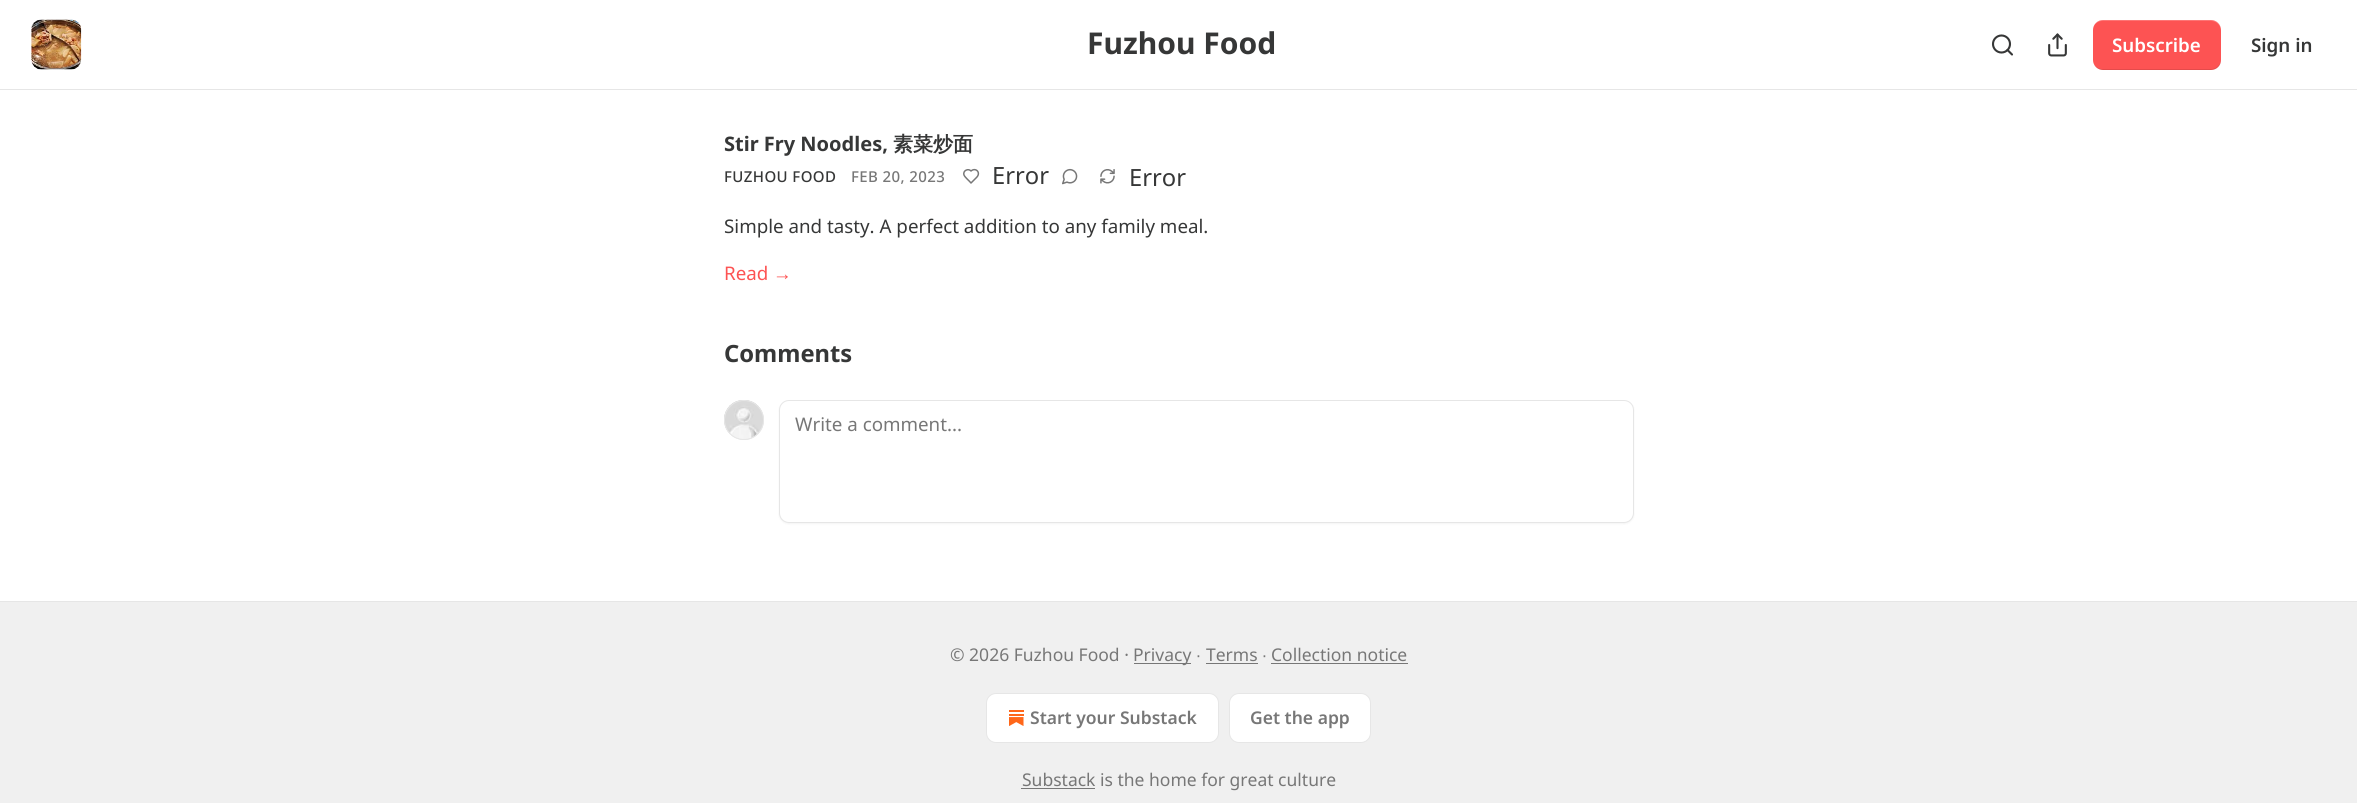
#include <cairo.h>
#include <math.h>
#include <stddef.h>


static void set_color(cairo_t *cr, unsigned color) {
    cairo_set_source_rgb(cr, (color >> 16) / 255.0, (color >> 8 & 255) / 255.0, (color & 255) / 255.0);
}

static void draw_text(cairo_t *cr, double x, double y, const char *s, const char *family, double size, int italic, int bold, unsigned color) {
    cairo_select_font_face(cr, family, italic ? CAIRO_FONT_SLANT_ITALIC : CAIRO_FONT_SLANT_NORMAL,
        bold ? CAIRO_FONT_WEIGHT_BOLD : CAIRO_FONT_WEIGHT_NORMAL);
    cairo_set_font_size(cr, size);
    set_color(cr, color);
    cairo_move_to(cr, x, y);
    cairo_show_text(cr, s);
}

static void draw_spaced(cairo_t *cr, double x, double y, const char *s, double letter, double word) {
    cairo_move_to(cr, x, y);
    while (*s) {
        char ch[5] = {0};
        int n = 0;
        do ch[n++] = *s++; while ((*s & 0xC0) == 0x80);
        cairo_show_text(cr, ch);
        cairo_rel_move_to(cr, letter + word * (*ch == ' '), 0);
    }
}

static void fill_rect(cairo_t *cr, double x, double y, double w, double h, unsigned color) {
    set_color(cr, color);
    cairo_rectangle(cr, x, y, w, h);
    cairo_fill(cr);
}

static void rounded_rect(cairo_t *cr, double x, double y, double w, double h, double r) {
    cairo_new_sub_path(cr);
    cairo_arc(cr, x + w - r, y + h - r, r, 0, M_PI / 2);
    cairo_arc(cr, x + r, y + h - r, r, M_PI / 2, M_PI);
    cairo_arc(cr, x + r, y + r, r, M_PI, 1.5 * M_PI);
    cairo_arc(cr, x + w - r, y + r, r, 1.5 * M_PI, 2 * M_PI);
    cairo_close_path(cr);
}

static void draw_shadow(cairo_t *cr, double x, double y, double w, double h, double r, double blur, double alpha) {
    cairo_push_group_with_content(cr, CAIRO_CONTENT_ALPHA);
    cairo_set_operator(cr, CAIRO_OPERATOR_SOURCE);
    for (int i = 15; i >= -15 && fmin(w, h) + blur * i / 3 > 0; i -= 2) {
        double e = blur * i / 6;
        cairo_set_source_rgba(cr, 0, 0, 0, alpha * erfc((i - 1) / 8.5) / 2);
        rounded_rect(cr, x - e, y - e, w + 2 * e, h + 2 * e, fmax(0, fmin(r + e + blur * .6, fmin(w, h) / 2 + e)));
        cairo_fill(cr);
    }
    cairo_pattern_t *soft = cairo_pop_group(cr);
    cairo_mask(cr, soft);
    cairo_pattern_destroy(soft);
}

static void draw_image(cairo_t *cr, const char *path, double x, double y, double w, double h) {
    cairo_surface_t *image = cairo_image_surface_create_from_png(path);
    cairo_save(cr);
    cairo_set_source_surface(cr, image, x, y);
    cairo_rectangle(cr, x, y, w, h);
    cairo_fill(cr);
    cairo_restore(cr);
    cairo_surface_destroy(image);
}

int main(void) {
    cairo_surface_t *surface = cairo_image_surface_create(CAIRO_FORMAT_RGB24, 2357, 803);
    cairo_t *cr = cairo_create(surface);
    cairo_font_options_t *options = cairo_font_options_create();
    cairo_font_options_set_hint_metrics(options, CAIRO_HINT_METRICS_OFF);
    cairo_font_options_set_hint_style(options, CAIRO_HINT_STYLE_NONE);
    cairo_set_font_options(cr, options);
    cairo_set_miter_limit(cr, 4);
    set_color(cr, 0xFFFFFF);
    cairo_paint(cr);
    fill_rect(cr, 0, 89, 2357, 1, 0xE6E6E6);
    draw_image(cr, "assets/img1.png", 31, 19, 51, 51);
    draw_text(cr, 1087, 54, "Fuzhou Food", "Noto Sans", 30, 0, 1, 0x363737);
    cairo_new_path(cr);
    cairo_arc(cr, 2001.5, 44, 8.5, 0, 2 * M_PI);
    cairo_set_line_width(cr, 2.1);
    cairo_stroke(cr);
    cairo_new_path(cr);
    cairo_move_to(cr, 2012, 54.5);
    cairo_line_to(cr, 2007.5, 50);
    cairo_set_line_cap(cr, CAIRO_LINE_CAP_ROUND);
    cairo_set_line_join(cr, CAIRO_LINE_JOIN_ROUND);
    cairo_stroke(cr);
    draw_image(cr, "assets/img2.png", 2048, 33, 19, 24);
    set_color(cr, 0xFD5353);
    rounded_rect(cr, 2093, 20, 128, 50, 10);
    cairo_fill(cr);
    cairo_set_source_rgba(cr, 0, 0, 0, 0.1);
    cairo_new_path(cr);
    cairo_move_to(cr, 2094, 65);
    cairo_curve_to(cr, 2096, 68, 2099, 70, 2103, 70);
    cairo_line_to(cr, 2211, 70);
    cairo_curve_to(cr, 2217, 70, 2221, 66, 2221, 60);
    cairo_line_to(cr, 2221, 59);
    cairo_curve_to(cr, 2221, 64, 2217, 69, 2211, 69);
    cairo_line_to(cr, 2102, 69);
    cairo_curve_to(cr, 2099, 69, 2096, 67, 2094, 65);
    cairo_close_path(cr);
    cairo_fill(cr);
    cairo_set_source_rgba(cr, 1, 1, 1, 0.2);
    cairo_new_path(cr);
    cairo_move_to(cr, 2102, 21);
    cairo_line_to(cr, 2211, 21);
    cairo_curve_to(cr, 2217, 21, 2221, 26, 2221, 31);
    cairo_line_to(cr, 2221, 30);
    cairo_curve_to(cr, 2221, 24, 2217, 20, 2211, 20);
    cairo_line_to(cr, 2103, 20);
    cairo_curve_to(cr, 2099, 20, 2096, 22, 2094, 25);
    cairo_curve_to(cr, 2096, 23, 2099, 21, 2102, 21);
    cairo_close_path(cr);
    cairo_fill(cr);
    draw_text(cr, 2112, 52, "Subscribe", "Noto Sans SemiBold", 18.75, 0, 0, 0xFFFFFF);
    draw_text(cr, 2251, 52, "Sign in", "Noto Sans SemiBold", 18.75, 0, 0, 0x363737);
    draw_text(cr, 724, 151, "Stir Fry Noodles,", "Noto Sans", 20, 0, 1, 0x363737);
    draw_text(cr, 893, 151, "素菜炒面", "WenQuanYi Zen Hei", 20, 0, 1, 0x363737);
    cairo_select_font_face(cr, "Noto Sans Medium", CAIRO_FONT_SLANT_NORMAL, CAIRO_FONT_WEIGHT_NORMAL);
    cairo_set_font_size(cr, 15);
    draw_spaced(cr, 724, 182, "FUZHOU FOOD", 0.4, 0);
    set_color(cr, 0x777777);
    draw_spaced(cr, 851, 182, "FEB 20, 2023", 0.4, 0);
    cairo_new_path(cr);
    cairo_move_to(cr, 976.5, 177.5);
    cairo_curve_to(cr, 981.5, 172.5, 975.5, 167, 971, 171);
    cairo_curve_to(cr, 968.5, 168, 962.5, 170.5, 964, 175);
    cairo_curve_to(cr, 965, 177.5, 969.5, 181, 971, 183);
    cairo_close_path(cr);
    cairo_set_line_width(cr, 1.5);
    cairo_stroke(cr);
    draw_text(cr, 992, 184, "Error", "Noto Sans", 23.75, 0, 0, 0x363737);
    draw_image(cr, "assets/img3.png", 1062, 168, 16, 17);
    draw_image(cr, "assets/img4.png", 1100, 169, 15, 15);
    draw_text(cr, 1129, 186, "Error", "Noto Sans", 23.75, 0, 0, 0x363737);
    draw_text(cr, 724, 233, "Simple and tasty. A perfect addition to any family meal.", "Noto Sans", 18.75, 0, 0, 0x363737);
    draw_text(cr, 724, 280, "Read", "Noto Sans", 18.75, 0, 0, 0xFD5353);
    draw_text(cr, 773, 280, "→", "Liberation Sans", 18.75, 0, 0, 0xFD5353);
    draw_text(cr, 724, 362, "Comments", "Noto Sans", 23.75, 0, 1, 0x363737);
    cairo_new_path(cr);
    cairo_arc(cr, 744, 420, 19.5, 0, 2 * M_PI);
    set_color(cr, 0xE6E6E6);
    cairo_set_line_width(cr, 1);
    cairo_set_line_cap(cr, CAIRO_LINE_CAP_BUTT);
    cairo_set_line_join(cr, CAIRO_LINE_JOIN_MITER);
    cairo_stroke(cr);
    draw_image(cr, "assets/img5.png", 724, 400, 40, 39);
    cairo_arc(cr, 744, 420, 19.5, 0, 2 * M_PI);
    cairo_stroke(cr);
    set_color(cr, 0x000000);
    draw_shadow(cr, 779, 401, 855, 123, 10, 1, 0.05);
    set_color(cr, 0xFFFFFF);
    rounded_rect(cr, 779.5, 400.5, 854, 122, 9.5);
    cairo_fill_preserve(cr);
    set_color(cr, 0xE6E6E6);
    cairo_stroke(cr);
    draw_text(cr, 795, 431, "Write a comment...", "Noto Sans", 18.75, 0, 0, 0x777777);
    fill_rect(cr, 0, 602, 2357, 201, 0xF0F0F0);
    fill_rect(cr, 0, 601, 2357, 1, 0xE6E6E6);
    draw_text(cr, 950, 661, "© 2026 Fuzhou Food ·", "Noto Sans", 17.5, 0, 0, 0x777777);
    fill_rect(cr, 1134, 663, 57, 1, 0x777777);
    draw_text(cr, 1133, 661, "Privacy", "Noto Sans", 17.5, 0, 0, 0x777777);
    draw_text(cr, 1196, 661, "∙", "Liberation Sans", 17.5, 0, 0, 0x777777);
    draw_text(cr, 1206, 661, "Terms", "Noto Sans", 17.5, 0, 0, 0x777777);
    fill_rect(cr, 1206, 663, 52, 1, 0x777777);
    draw_text(cr, 1262, 661, "∙", "Liberation Sans", 17.5, 0, 0, 0x777777);
    draw_text(cr, 1271, 661, "Collection notice", "Noto Sans", 17.5, 0, 0, 0x777777);
    fill_rect(cr, 1271, 663, 137, 1, 0x777777);
    set_color(cr, 0xFFFFFF);
    rounded_rect(cr, 986.5, 693.5, 232, 49, 9.5);
    cairo_fill_preserve(cr);
    set_color(cr, 0xE6E6E6);
    cairo_stroke(cr);
    draw_image(cr, "assets/img6.png", 1009, 710, 15, 16);
    draw_text(cr, 1030, 724, "Start your Substack", "Noto Sans SemiBold", 17.5, 0, 0, 0x777777);
    set_color(cr, 0xFFFFFF);
    rounded_rect(cr, 1229.5, 693.5, 141, 49, 9.5);
    cairo_fill_preserve(cr);
    set_color(cr, 0xE6E6E6);
    cairo_stroke(cr);
    draw_text(cr, 1250, 724, "Get the app", "Noto Sans SemiBold", 17.5, 0, 0, 0x777777);
    fill_rect(cr, 1021, 788, 74, 1, 0x777777);
    draw_text(cr, 1022, 786, "Substack is the home for great culture", "Noto Sans", 17.5, 0, 0, 0x777777);
    cairo_surface_write_to_png(surface, "output.png");
    cairo_font_options_destroy(options);
    cairo_destroy(cr);
    cairo_surface_destroy(surface);
    return 0;
}
